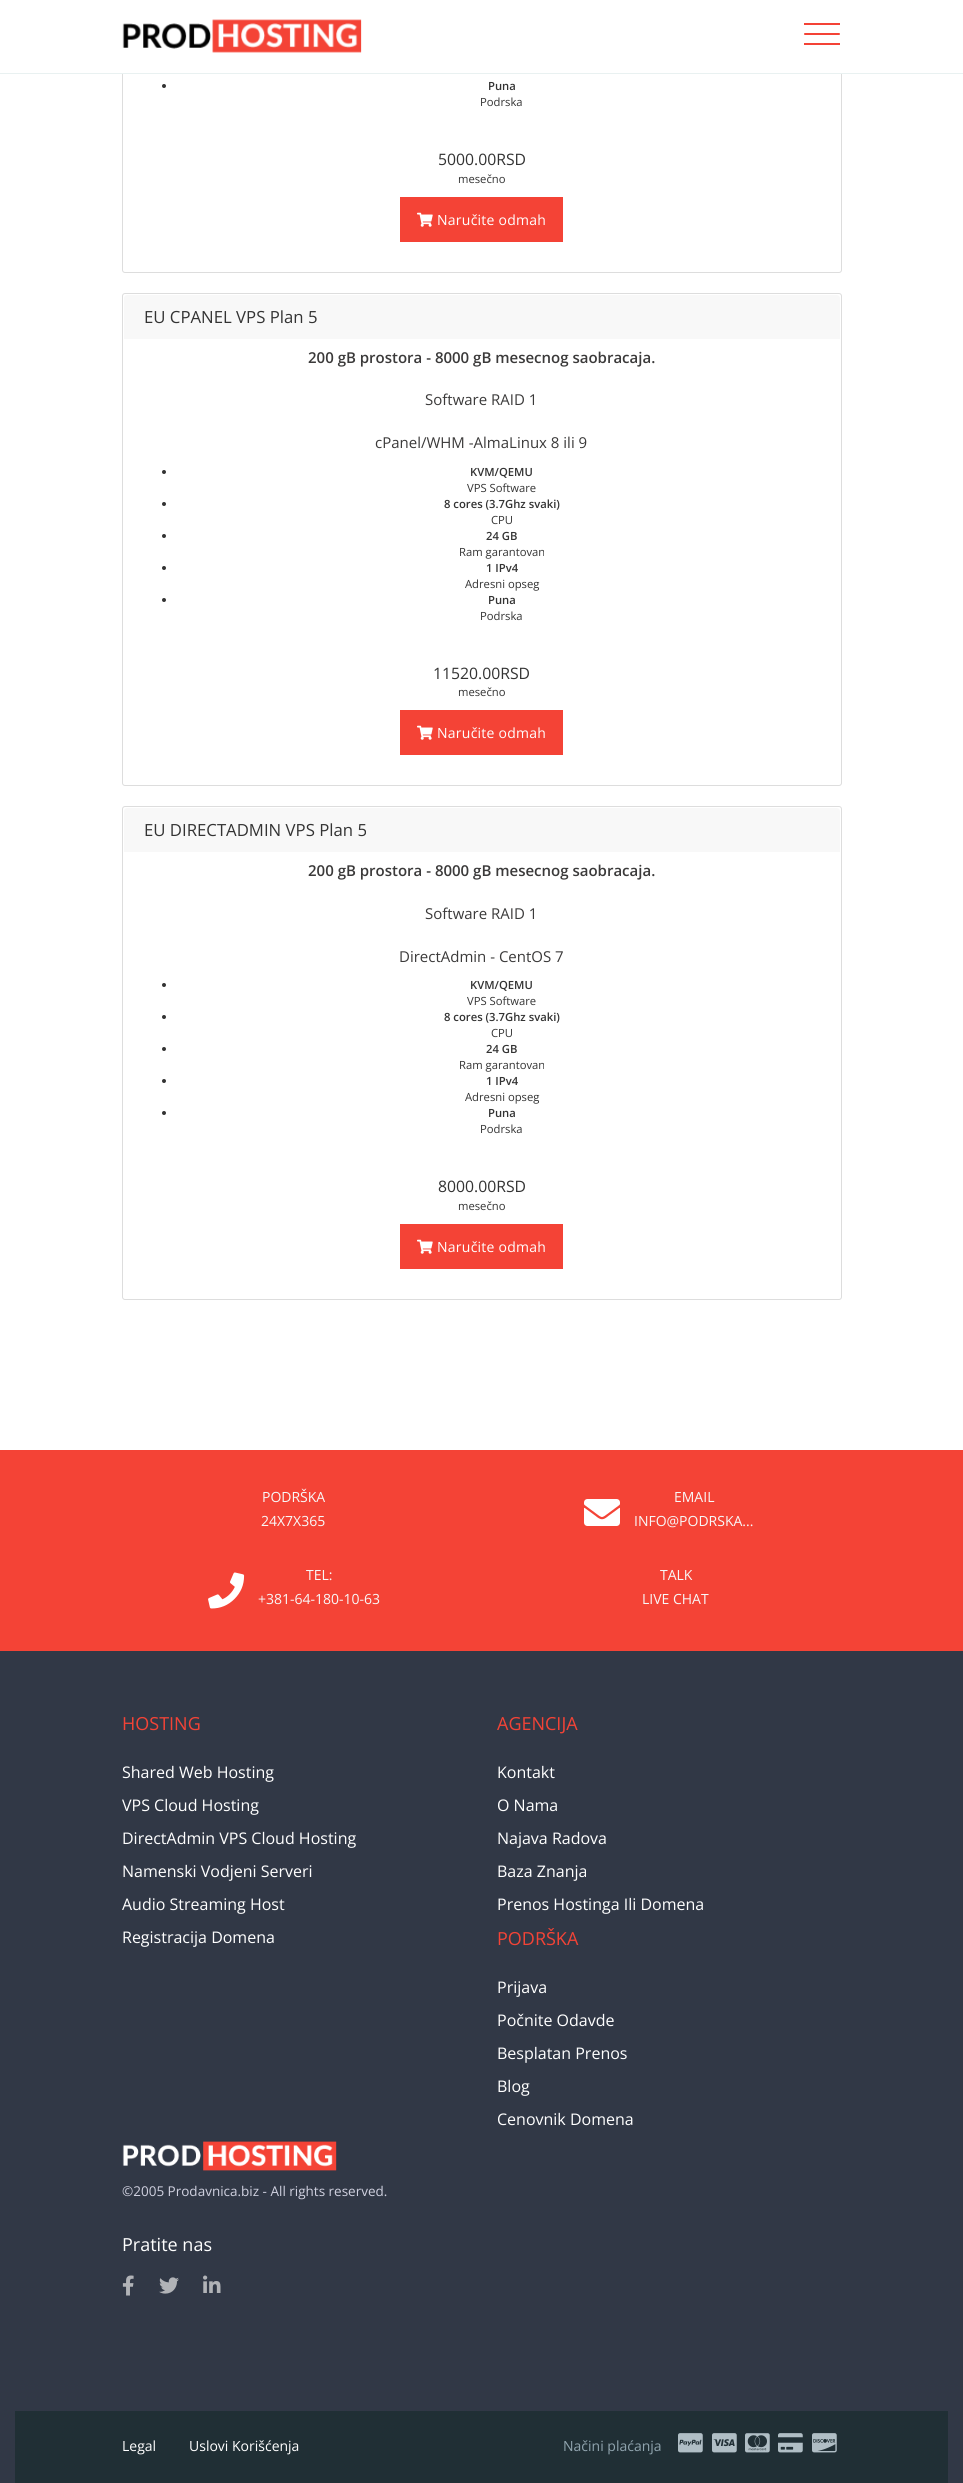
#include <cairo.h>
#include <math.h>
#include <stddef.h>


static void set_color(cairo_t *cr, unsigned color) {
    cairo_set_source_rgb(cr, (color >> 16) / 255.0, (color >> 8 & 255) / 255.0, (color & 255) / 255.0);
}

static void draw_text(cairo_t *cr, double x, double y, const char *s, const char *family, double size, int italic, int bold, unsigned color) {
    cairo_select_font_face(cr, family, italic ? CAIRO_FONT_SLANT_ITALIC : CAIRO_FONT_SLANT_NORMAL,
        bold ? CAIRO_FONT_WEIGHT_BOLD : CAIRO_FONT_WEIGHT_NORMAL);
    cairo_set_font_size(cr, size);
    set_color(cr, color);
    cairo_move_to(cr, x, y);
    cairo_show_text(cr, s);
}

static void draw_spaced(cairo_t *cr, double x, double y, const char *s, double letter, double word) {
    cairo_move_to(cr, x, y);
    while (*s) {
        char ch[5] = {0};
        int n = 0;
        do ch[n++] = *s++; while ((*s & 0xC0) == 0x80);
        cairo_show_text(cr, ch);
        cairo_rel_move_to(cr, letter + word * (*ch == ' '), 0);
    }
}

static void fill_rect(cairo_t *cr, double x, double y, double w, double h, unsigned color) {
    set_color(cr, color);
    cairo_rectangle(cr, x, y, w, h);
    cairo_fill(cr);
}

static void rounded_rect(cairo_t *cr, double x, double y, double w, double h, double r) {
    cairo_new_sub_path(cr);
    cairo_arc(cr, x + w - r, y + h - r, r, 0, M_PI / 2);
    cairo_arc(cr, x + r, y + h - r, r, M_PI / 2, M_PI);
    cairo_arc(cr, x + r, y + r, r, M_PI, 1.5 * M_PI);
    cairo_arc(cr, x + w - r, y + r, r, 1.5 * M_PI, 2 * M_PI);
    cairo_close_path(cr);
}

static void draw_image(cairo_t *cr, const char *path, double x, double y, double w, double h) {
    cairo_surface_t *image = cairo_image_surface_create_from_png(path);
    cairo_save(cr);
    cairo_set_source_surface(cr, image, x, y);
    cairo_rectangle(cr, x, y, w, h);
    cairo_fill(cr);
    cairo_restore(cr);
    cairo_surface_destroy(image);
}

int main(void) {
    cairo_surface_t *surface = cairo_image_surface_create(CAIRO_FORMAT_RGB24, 963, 2483);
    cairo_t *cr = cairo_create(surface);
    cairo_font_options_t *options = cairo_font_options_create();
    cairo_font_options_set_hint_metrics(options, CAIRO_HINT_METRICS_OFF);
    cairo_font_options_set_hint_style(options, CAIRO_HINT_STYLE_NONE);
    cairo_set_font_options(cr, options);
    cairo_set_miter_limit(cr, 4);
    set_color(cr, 0xFFFFFF);
    cairo_paint(cr);
    rounded_rect(cr, 122.5, -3.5, 719, 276, 2.5);
    set_color(cr, 0xDDDDDD);
    cairo_set_line_width(cr, 1);
    cairo_stroke(cr);
    fill_rect(cr, 122, 0, 720, 73, 0xFFFFFF);
    fill_rect(cr, 0, 73, 963, 1, 0xE9F1F1);
    draw_image(cr, "assets/img1.png", 122, 19, 240, 34);
    set_color(cr, 0xF44336);
    rounded_rect(cr, 804, 33, 36, 2, 1);
    cairo_fill(cr);
    fill_rect(cr, 804, 23, 36, 2, 0xF44336);
    fill_rect(cr, 804, 43, 36, 2, 0xF44336);
    set_color(cr, 0x333333);
    cairo_arc(cr, 164, 86, 2, 0, 2 * M_PI);
    cairo_fill(cr);
    draw_text(cr, 488, 90, "Puna", "Open Sans SemiBold", 11.25, 0, 0, 0x333333);
    draw_text(cr, 480, 106, "Podrska", "Open Sans", 11.25, 0, 0, 0x333333);
    draw_text(cr, 438, 165, "5000.00RSD", "Open Sans", 15.75, 0, 0, 0x333333);
    draw_text(cr, 458, 183, "mesečno", "Open Sans", 11.25, 0, 0, 0x333333);
    fill_rect(cr, 400, 197, 163, 45, 0xF44336);
    draw_image(cr, "assets/img2.png", 417, 212, 16, 15);
    cairo_set_font_size(cr, 14);
    set_color(cr, 0xFFFFFF);
    draw_spaced(cr, 437, 225, "Naručite odmah", 0.25, 0);
    rounded_rect(cr, 122.5, 293.5, 719, 492, 2.5);
    set_color(cr, 0xDDDDDD);
    cairo_stroke(cr);
    set_color(cr, 0xF8F8F8);
    cairo_new_path(cr);
    cairo_move_to(cr, 127, 295);
    cairo_line_to(cr, 837, 295);
    cairo_curve_to(cr, 838.5, 295, 840, 296.5, 840, 298);
    cairo_line_to(cr, 840, 339);
    cairo_line_to(cr, 124, 339);
    cairo_line_to(cr, 124, 298);
    cairo_curve_to(cr, 124, 296.5, 125.5, 295, 127, 295);
    cairo_close_path(cr);
    cairo_fill(cr);
    draw_text(cr, 144, 323, "EU CPANEL VPS Plan 5", "Open Sans", 16.75, 0, 0, 0x333333);
    draw_text(cr, 308, 363, "200 gB prostora - 8000 gB mesecnog saobracaja.", "Open Sans SemiBold", 15, 0, 0, 0x3B3A3A);
    draw_text(cr, 425, 405, "Software RAID 1", "Open Sans", 15, 0, 0, 0x3B3A3A);
    draw_text(cr, 375, 448, "cPanel/WHM -AlmaLinux 8 ili 9", "Open Sans", 15, 0, 0, 0x3B3A3A);
    set_color(cr, 0x333333);
    cairo_new_path(cr);
    cairo_arc(cr, 164, 472, 2, 0, 2 * M_PI);
    cairo_fill(cr);
    draw_text(cr, 470, 476, "KVM/QEMU", "Open Sans SemiBold", 11.25, 0, 0, 0x333333);
    draw_text(cr, 467, 492, "VPS Software", "Open Sans", 11.25, 0, 0, 0x333333);
    cairo_new_path(cr);
    cairo_arc(cr, 164, 504, 2, 0, 2 * M_PI);
    cairo_fill(cr);
    draw_text(cr, 444, 508, "8 cores (3.7Ghz svaki)", "Open Sans SemiBold", 11.25, 0, 0, 0x333333);
    draw_text(cr, 491, 524, "CPU", "Open Sans", 11.25, 0, 0, 0x333333);
    cairo_new_path(cr);
    cairo_arc(cr, 164, 536, 2, 0, 2 * M_PI);
    cairo_fill(cr);
    draw_text(cr, 486, 540, "24 GB", "Open Sans SemiBold", 11.25, 0, 0, 0x333333);
    draw_text(cr, 459, 556, "Ram garantovan", "Open Sans", 11.25, 0, 0, 0x333333);
    cairo_new_path(cr);
    cairo_arc(cr, 164, 568, 2, 0, 2 * M_PI);
    cairo_fill(cr);
    draw_text(cr, 486, 572, "1 IPv4", "Open Sans SemiBold", 11.25, 0, 0, 0x333333);
    draw_text(cr, 465, 588, "Adresni opseg", "Open Sans", 11.25, 0, 0, 0x333333);
    cairo_new_path(cr);
    cairo_arc(cr, 164, 600, 2, 0, 2 * M_PI);
    cairo_fill(cr);
    draw_text(cr, 488, 604, "Puna", "Open Sans SemiBold", 11.25, 0, 0, 0x333333);
    draw_text(cr, 480, 620, "Podrska", "Open Sans", 11.25, 0, 0, 0x333333);
    draw_text(cr, 433, 679, "11520.00RSD", "Open Sans", 15.75, 0, 0, 0x333333);
    draw_text(cr, 458, 696, "mesečno", "Open Sans", 11.25, 0, 0, 0x333333);
    fill_rect(cr, 400, 710, 163, 45, 0xF44336);
    draw_image(cr, "assets/img2.png", 417, 725, 16, 15);
    cairo_set_font_size(cr, 14);
    set_color(cr, 0xFFFFFF);
    draw_spaced(cr, 437, 738, "Naručite odmah", 0.25, 0);
    rounded_rect(cr, 122.5, 806.5, 719, 493, 2.5);
    set_color(cr, 0xDDDDDD);
    cairo_stroke(cr);
    set_color(cr, 0xF8F8F8);
    cairo_new_path(cr);
    cairo_move_to(cr, 127, 808);
    cairo_line_to(cr, 837, 808);
    cairo_curve_to(cr, 838.5, 808, 840, 809.5, 840, 811);
    cairo_line_to(cr, 840, 852);
    cairo_line_to(cr, 124, 852);
    cairo_line_to(cr, 124, 811);
    cairo_curve_to(cr, 124, 809.5, 125.5, 808, 127, 808);
    cairo_close_path(cr);
    cairo_fill(cr);
    draw_text(cr, 144, 836, "EU DIRECTADMIN VPS Plan 5", "Open Sans", 16.75, 0, 0, 0x333333);
    draw_text(cr, 308, 876, "200 gB prostora - 8000 gB mesecnog saobracaja.", "Open Sans SemiBold", 15, 0, 0, 0x3B3A3A);
    draw_text(cr, 425, 919, "Software RAID 1", "Open Sans", 15, 0, 0, 0x3B3A3A);
    draw_text(cr, 399, 962, "DirectAdmin - CentOS 7", "Open Sans", 15, 0, 0, 0x3B3A3A);
    set_color(cr, 0x333333);
    cairo_new_path(cr);
    cairo_arc(cr, 164, 985, 2, 0, 2 * M_PI);
    cairo_fill(cr);
    draw_text(cr, 470, 989, "KVM/QEMU", "Open Sans SemiBold", 11.25, 0, 0, 0x333333);
    draw_text(cr, 467, 1005, "VPS Software", "Open Sans", 11.25, 0, 0, 0x333333);
    cairo_new_path(cr);
    cairo_arc(cr, 164, 1017, 2, 0, 2 * M_PI);
    cairo_fill(cr);
    draw_text(cr, 444, 1021, "8 cores (3.7Ghz svaki)", "Open Sans SemiBold", 11.25, 0, 0, 0x333333);
    draw_text(cr, 491, 1037, "CPU", "Open Sans", 11.25, 0, 0, 0x333333);
    cairo_new_path(cr);
    cairo_arc(cr, 164, 1049, 2, 0, 2 * M_PI);
    cairo_fill(cr);
    draw_text(cr, 486, 1053, "24 GB", "Open Sans SemiBold", 11.25, 0, 0, 0x333333);
    draw_text(cr, 459, 1069, "Ram garantovan", "Open Sans", 11.25, 0, 0, 0x333333);
    cairo_new_path(cr);
    cairo_arc(cr, 164, 1081, 2, 0, 2 * M_PI);
    cairo_fill(cr);
    draw_text(cr, 486, 1085, "1 IPv4", "Open Sans SemiBold", 11.25, 0, 0, 0x333333);
    draw_text(cr, 465, 1101, "Adresni opseg", "Open Sans", 11.25, 0, 0, 0x333333);
    cairo_new_path(cr);
    cairo_arc(cr, 164, 1113, 2, 0, 2 * M_PI);
    cairo_fill(cr);
    draw_text(cr, 488, 1117, "Puna", "Open Sans SemiBold", 11.25, 0, 0, 0x333333);
    draw_text(cr, 480, 1133, "Podrska", "Open Sans", 11.25, 0, 0, 0x333333);
    draw_text(cr, 438, 1192, "8000.00RSD", "Open Sans", 15.75, 0, 0, 0x333333);
    draw_text(cr, 458, 1210, "mesečno", "Open Sans", 11.25, 0, 0, 0x333333);
    fill_rect(cr, 400, 1224, 163, 45, 0xF44336);
    draw_image(cr, "assets/img2.png", 417, 1239, 16, 15);
    cairo_set_font_size(cr, 14);
    set_color(cr, 0xFFFFFF);
    draw_spaced(cr, 437, 1252, "Naručite odmah", 0.25, 0);
    fill_rect(cr, 0, 1450, 963, 201, 0xF44336);
    draw_text(cr, 262, 1502, "PODRŠKA", "Open Sans", 14, 0, 0, 0xF8F8F8);
    draw_text(cr, 261, 1526, "24X7X365", "Open Sans", 14, 0, 0, 0xF8F8F8);
    draw_image(cr, "assets/img3.png", 584, 1499, 36, 27);
    draw_text(cr, 674, 1502, "EMAIL", "Open Sans", 14, 0, 0, 0xF8F8F8);
    draw_text(cr, 634, 1526, "INFO@PODRSKA...", "Open Sans", 14, 0, 0, 0xF8F8F8);
    draw_image(cr, "assets/img4.png", 208, 1572, 37, 37);
    draw_text(cr, 306, 1580, "TEL:", "Open Sans", 14, 0, 0, 0xF8F8F8);
    draw_text(cr, 258, 1604, "+381-64-180-10-63", "Open Sans", 14, 0, 0, 0xF8F8F8);
    draw_text(cr, 660, 1580, "TALK", "Open Sans", 14, 0, 0, 0xF8F8F8);
    draw_text(cr, 642, 1604, "LIVE CHAT", "Open Sans", 14, 0, 0, 0xF8F8F8);
    fill_rect(cr, 0, 1651, 963, 832, 0x313846);
    draw_text(cr, 122, 1730, "HOSTING", "Open Sans", 18, 0, 0, 0xF44336);
    draw_text(cr, 122, 1778, "Shared Web Hosting", "Open Sans", 16, 0, 0, 0xFFFFFF);
    draw_text(cr, 122, 1811, "VPS Cloud Hosting", "Open Sans", 16, 0, 0, 0xFFFFFF);
    draw_text(cr, 122, 1844, "DirectAdmin VPS Cloud Hosting", "Open Sans", 16, 0, 0, 0xFFFFFF);
    draw_text(cr, 122, 1877, "Namenski Vodjeni Serveri", "Open Sans", 16, 0, 0, 0xFFFFFF);
    draw_text(cr, 122, 1910, "Audio Streaming Host", "Open Sans", 16, 0, 0, 0xFFFFFF);
    draw_text(cr, 122, 1943, "Registracija Domena", "Open Sans", 16, 0, 0, 0xFFFFFF);
    draw_text(cr, 497, 1730, "AGENCIJA", "Open Sans", 18, 0, 0, 0xF44336);
    draw_text(cr, 497, 1778, "Kontakt", "Open Sans", 16, 0, 0, 0xFFFFFF);
    draw_text(cr, 497, 1811, "O Nama", "Open Sans", 16, 0, 0, 0xFFFFFF);
    draw_text(cr, 497, 1844, "Najava Radova", "Open Sans", 16, 0, 0, 0xFFFFFF);
    draw_text(cr, 497, 1877, "Baza Znanja", "Open Sans", 16, 0, 0, 0xFFFFFF);
    draw_text(cr, 497, 1910, "Prenos Hostinga Ili Domena", "Open Sans", 16, 0, 0, 0xFFFFFF);
    draw_text(cr, 497, 1945, "PODRŠKA", "Open Sans", 18, 0, 0, 0xF44336);
    draw_text(cr, 497, 1993, "Prijava", "Open Sans", 16, 0, 0, 0xFFFFFF);
    draw_text(cr, 497, 2026, "Počnite Odavde", "Open Sans", 16, 0, 0, 0xFFFFFF);
    draw_text(cr, 497, 2059, "Besplatan Prenos", "Open Sans", 16, 0, 0, 0xFFFFFF);
    draw_text(cr, 497, 2092, "Blog", "Open Sans", 16, 0, 0, 0xFFFFFF);
    draw_text(cr, 497, 2125, "Cenovnik Domena", "Open Sans", 16, 0, 0, 0xFFFFFF);
    draw_image(cr, "assets/img5.png", 122, 2141, 215, 30);
    draw_text(cr, 122, 2196, "©2005 Prodavnica.biz - All rights reserved.", "Open Sans", 13.5, 0, 0, 0xD0D1E0);
    draw_text(cr, 122, 2251, "Pratite nas", "Open Sans", 18, 0, 0, 0xFFFFFF);
    draw_image(cr, "assets/img6.png", 122, 2275, 12, 21);
    draw_image(cr, "assets/img7.png", 159, 2277, 20, 17);
    draw_image(cr, "assets/img8.png", 203, 2275, 18, 18);
    fill_rect(cr, 15, 2411, 933, 72, 0x202F35);
    draw_text(cr, 122, 2451, "Legal", "Open Sans", 14, 0, 0, 0xFFFFFF);
    draw_text(cr, 189, 2451, "Uslovi Korišćenja", "Open Sans", 14, 0, 0, 0xFFFFFF);
    draw_text(cr, 563, 2451, "Načini plaćanja", "Open Sans", 14, 0, 0, 0x90A4AE);
    draw_image(cr, "assets/img9.png", 678, 2433, 25, 20);
    draw_image(cr, "assets/img10.png", 712, 2433, 25, 20);
    draw_image(cr, "assets/img11.png", 745, 2433, 25, 20);
    draw_image(cr, "assets/img12.png", 778, 2433, 25, 20);
    draw_image(cr, "assets/img13.png", 812, 2433, 25, 20);
    cairo_surface_write_to_png(surface, "output.png");
    cairo_font_options_destroy(options);
    cairo_destroy(cr);
    cairo_surface_destroy(surface);
    return 0;
}
